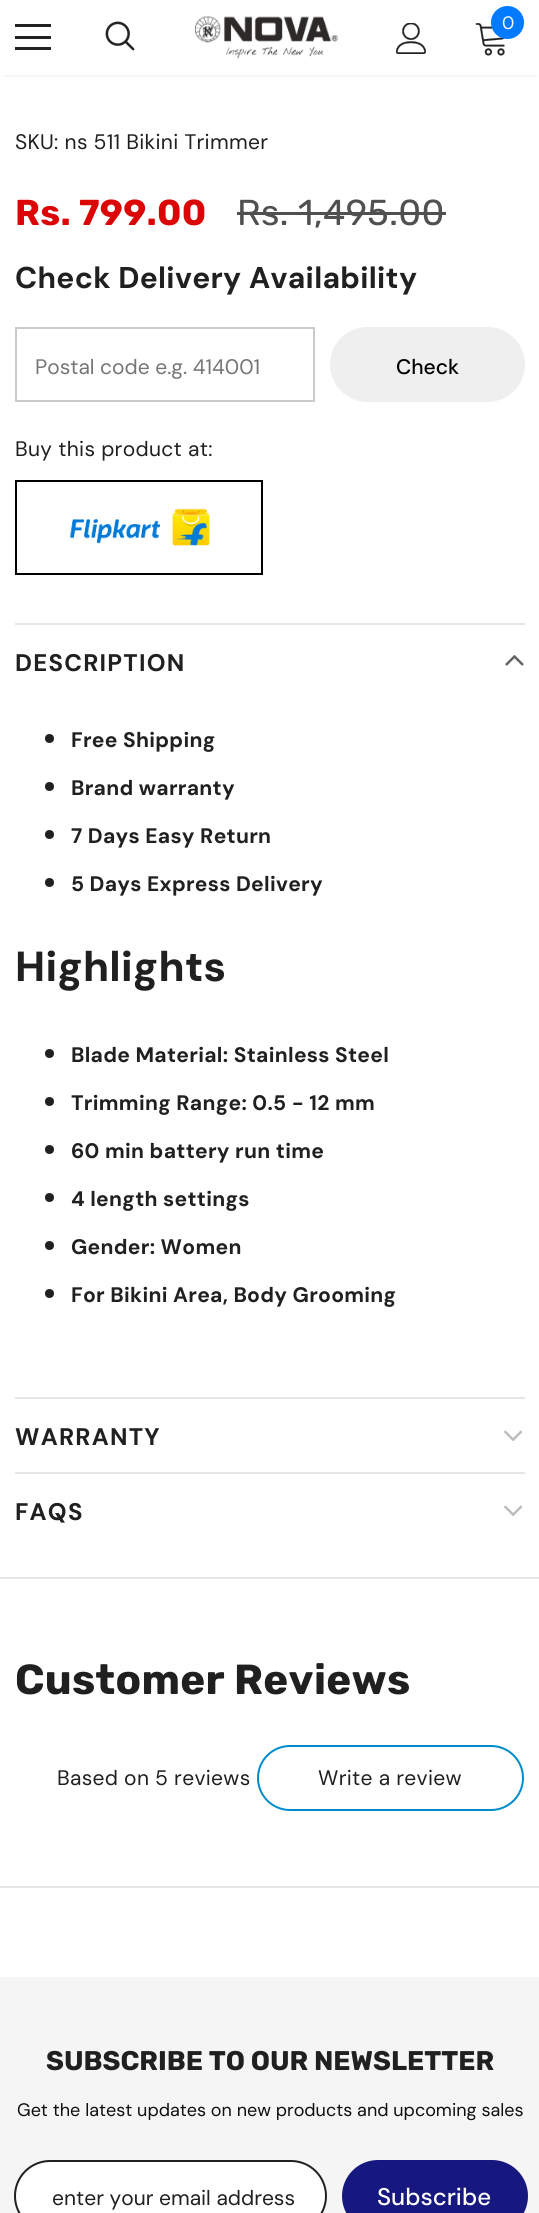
#include <cairo.h>
#include <math.h>
#include <stddef.h>


static void set_color(cairo_t *cr, unsigned color) {
    cairo_set_source_rgb(cr, (color >> 16) / 255.0, (color >> 8 & 255) / 255.0, (color & 255) / 255.0);
}

static void draw_text(cairo_t *cr, double x, double y, const char *s, const char *family, double size, int italic, int bold, unsigned color) {
    cairo_select_font_face(cr, family, italic ? CAIRO_FONT_SLANT_ITALIC : CAIRO_FONT_SLANT_NORMAL,
        bold ? CAIRO_FONT_WEIGHT_BOLD : CAIRO_FONT_WEIGHT_NORMAL);
    cairo_set_font_size(cr, size);
    set_color(cr, color);
    cairo_move_to(cr, x, y);
    cairo_show_text(cr, s);
}

static void draw_spaced(cairo_t *cr, double x, double y, const char *s, double letter, double word) {
    cairo_move_to(cr, x, y);
    while (*s) {
        char ch[5] = {0};
        int n = 0;
        do ch[n++] = *s++; while ((*s & 0xC0) == 0x80);
        cairo_show_text(cr, ch);
        cairo_rel_move_to(cr, letter + word * (*ch == ' '), 0);
    }
}

static void fill_rect(cairo_t *cr, double x, double y, double w, double h, unsigned color) {
    set_color(cr, color);
    cairo_rectangle(cr, x, y, w, h);
    cairo_fill(cr);
}

static void rounded_rect(cairo_t *cr, double x, double y, double w, double h, double r) {
    cairo_new_sub_path(cr);
    cairo_arc(cr, x + w - r, y + h - r, r, 0, M_PI / 2);
    cairo_arc(cr, x + r, y + h - r, r, M_PI / 2, M_PI);
    cairo_arc(cr, x + r, y + r, r, M_PI, 1.5 * M_PI);
    cairo_arc(cr, x + w - r, y + r, r, 1.5 * M_PI, 2 * M_PI);
    cairo_close_path(cr);
}

static void draw_shadow(cairo_t *cr, double x, double y, double w, double h, double r, double blur, double alpha) {
    cairo_push_group_with_content(cr, CAIRO_CONTENT_ALPHA);
    cairo_set_operator(cr, CAIRO_OPERATOR_SOURCE);
    for (int i = 15; i >= -15 && fmin(w, h) + blur * i / 3 > 0; i -= 2) {
        double e = blur * i / 6;
        cairo_set_source_rgba(cr, 0, 0, 0, alpha * erfc((i - 1) / 8.5) / 2);
        rounded_rect(cr, x - e, y - e, w + 2 * e, h + 2 * e, fmax(0, fmin(r + e + blur * .6, fmin(w, h) / 2 + e)));
        cairo_fill(cr);
    }
    cairo_pattern_t *soft = cairo_pop_group(cr);
    cairo_mask(cr, soft);
    cairo_pattern_destroy(soft);
}

static void draw_image(cairo_t *cr, const char *path, double x, double y, double w, double h) {
    cairo_surface_t *image = cairo_image_surface_create_from_png(path);
    cairo_save(cr);
    cairo_set_source_surface(cr, image, x, y);
    cairo_rectangle(cr, x, y, w, h);
    cairo_fill(cr);
    cairo_restore(cr);
    cairo_surface_destroy(image);
}

int main(void) {
    cairo_surface_t *surface = cairo_image_surface_create(CAIRO_FORMAT_RGB24, 539, 2213);
    cairo_t *cr = cairo_create(surface);
    cairo_font_options_t *options = cairo_font_options_create();
    cairo_font_options_set_hint_metrics(options, CAIRO_HINT_METRICS_OFF);
    cairo_font_options_set_hint_style(options, CAIRO_HINT_STYLE_NONE);
    cairo_set_font_options(cr, options);
    cairo_set_miter_limit(cr, 4);
    set_color(cr, 0xFFFFFF);
    cairo_paint(cr);
    set_color(cr, 0x000000);
    draw_shadow(cr, 5, 9, 531, 66, 0, 2, 0.12);
    fill_rect(cr, 2, 6, 537, 69, 0xFFFFFF);
    fill_rect(cr, 15, 24, 36, 3, 0x232323);
    fill_rect(cr, 15, 36, 36, 3, 0x232323);
    fill_rect(cr, 15, 47, 36, 3, 0x232323);
    draw_image(cr, "assets/img1.png", 105, 21, 30, 30);
    draw_image(cr, "assets/img2.png", 195, 16, 143, 43);
    draw_image(cr, "assets/img3.png", 396, 23, 31, 31);
    draw_image(cr, "assets/img4.png", 475, 23, 30, 33);
    set_color(cr, 0x007BFF);
    cairo_arc(cr, 507.5, 22.5, 16.5, 0, 2 * M_PI);
    cairo_fill(cr);
    draw_text(cr, 502, 29, "0", "DM Sans", 18, 0, 0, 0xF8F8F8);
    cairo_set_font_size(cr, 21);
    set_color(cr, 0x202020);
    draw_spaced(cr, 15, 149, "SKU: ns 511 Bikini Trimmer", 0.3, 0);
    cairo_select_font_face(cr, "Rubik", CAIRO_FONT_SLANT_NORMAL, CAIRO_FONT_WEIGHT_BOLD);
    cairo_set_font_size(cr, 36);
    set_color(cr, 0xDC0505);
    draw_spaced(cr, 15, 225, "Rs. 799.00", 0.3, 0);
    cairo_select_font_face(cr, "Rubik", CAIRO_FONT_SLANT_NORMAL, CAIRO_FONT_WEIGHT_NORMAL);
    set_color(cr, 0x505050);
    draw_spaced(cr, 237, 225, "Rs. 1,495.00", 0.3, 0);
    fill_rect(cr, 237, 212, 209, 3, 0x505050);
    cairo_select_font_face(cr, "DM Sans", CAIRO_FONT_SLANT_NORMAL, CAIRO_FONT_WEIGHT_BOLD);
    cairo_set_font_size(cr, 30);
    set_color(cr, 0x202020);
    draw_spaced(cr, 15, 288, "Check Delivery Availability", 0.3, 0);
    cairo_rectangle(cr, 16, 328, 298, 73);
    set_color(cr, 0xCBCBCB);
    cairo_stroke(cr);
    draw_text(cr, 35, 374, "Postal code e.g. 414001", "DM Sans", 21, 0, 0, 0x757575);
    set_color(cr, 0xEFEFEF);
    rounded_rect(cr, 330, 327, 195, 75, 37.5);
    cairo_fill(cr);
    draw_text(cr, 396, 374, "Check", "DM Sans Medium", 21, 0, 0, 0x000000);
    cairo_select_font_face(cr, "DM Sans", CAIRO_FONT_SLANT_NORMAL, CAIRO_FONT_WEIGHT_NORMAL);
    set_color(cr, 0x202020);
    draw_spaced(cr, 15, 456, "Buy this product at:", 0.3, 0);
    cairo_rectangle(cr, 16, 481, 246, 93);
    set_color(cr, 0x000000);
    cairo_stroke(cr);
    draw_image(cr, "assets/img5.png", 69, 508, 141, 38);
    fill_rect(cr, 15, 623, 510, 2, 0xE6E6E6);
    cairo_select_font_face(cr, "DM Sans", CAIRO_FONT_SLANT_NORMAL, CAIRO_FONT_WEIGHT_BOLD);
    cairo_set_font_size(cr, 24);
    set_color(cr, 0x202020);
    draw_spaced(cr, 15, 671, "DESCRIPTION", 1.25, 0);
    draw_image(cr, "assets/img6.png", 505, 655, 19, 11);
    cairo_arc(cr, 49.5, 738.5, 4.5, 0, 2 * M_PI);
    cairo_fill(cr);
    cairo_set_font_size(cr, 21);
    draw_spaced(cr, 71, 747, "Free Shipping", 0.3, 0);
    cairo_new_path(cr);
    cairo_arc(cr, 49.5, 786.5, 4.5, 0, 2 * M_PI);
    cairo_fill(cr);
    draw_spaced(cr, 71, 795, "Brand warranty", 0.3, 0);
    cairo_new_path(cr);
    cairo_arc(cr, 49.5, 834.5, 4.5, 0, 2 * M_PI);
    cairo_fill(cr);
    draw_spaced(cr, 71, 843, "7 Days Easy Return", 0.3, 0);
    cairo_new_path(cr);
    cairo_arc(cr, 49.5, 882.5, 4.5, 0, 2 * M_PI);
    cairo_fill(cr);
    draw_spaced(cr, 71, 891, "5 Days Express Delivery", 0.3, 0);
    cairo_select_font_face(cr, "DM Sans ExtraBold", CAIRO_FONT_SLANT_NORMAL, CAIRO_FONT_WEIGHT_NORMAL);
    cairo_set_font_size(cr, 42);
    draw_spaced(cr, 15, 981, "Highlights", 0.3, 0);
    cairo_new_path(cr);
    cairo_arc(cr, 49.5, 1053.5, 4.5, 0, 2 * M_PI);
    cairo_fill(cr);
    cairo_select_font_face(cr, "DM Sans", CAIRO_FONT_SLANT_NORMAL, CAIRO_FONT_WEIGHT_BOLD);
    cairo_set_font_size(cr, 21);
    draw_spaced(cr, 71, 1062, "Blade Material: Stainless Steel", 0.3, 0);
    cairo_new_path(cr);
    cairo_arc(cr, 49.5, 1101.5, 4.5, 0, 2 * M_PI);
    cairo_fill(cr);
    draw_spaced(cr, 71, 1110, "Trimming Range: 0.5 - 12 mm", 0.3, 0);
    cairo_new_path(cr);
    cairo_arc(cr, 49.5, 1149.5, 4.5, 0, 2 * M_PI);
    cairo_fill(cr);
    draw_spaced(cr, 71, 1158, "60 min battery run time", 0.3, 0);
    cairo_new_path(cr);
    cairo_arc(cr, 49.5, 1197.5, 4.5, 0, 2 * M_PI);
    cairo_fill(cr);
    draw_spaced(cr, 71, 1206, "4 length settings", 0.3, 0);
    cairo_new_path(cr);
    cairo_arc(cr, 49.5, 1245.5, 4.5, 0, 2 * M_PI);
    cairo_fill(cr);
    draw_spaced(cr, 71, 1254, "Gender: Women", 0.3, 0);
    cairo_new_path(cr);
    cairo_arc(cr, 49.5, 1293.5, 4.5, 0, 2 * M_PI);
    cairo_fill(cr);
    draw_spaced(cr, 71, 1302, "For Bikini Area, Body Grooming", 0.3, 0);
    fill_rect(cr, 15, 1397, 510, 2, 0xE6E6E6);
    cairo_set_font_size(cr, 24);
    set_color(cr, 0x202020);
    draw_spaced(cr, 15, 1445, "WARRANTY", 1.25, 0);
    draw_image(cr, "assets/img7.png", 504, 1430, 19, 11);
    fill_rect(cr, 15, 1472, 510, 2, 0xE6E6E6);
    set_color(cr, 0x202020);
    draw_spaced(cr, 15, 1520, "FAQS", 1.25, 0);
    draw_image(cr, "assets/img7.png", 504, 1505, 19, 11);
    fill_rect(cr, 0, 1577, 539, 2, 0xE6E6E6);
    cairo_select_font_face(cr, "Rubik", CAIRO_FONT_SLANT_NORMAL, CAIRO_FONT_WEIGHT_BOLD);
    cairo_set_font_size(cr, 42);
    set_color(cr, 0x202020);
    draw_spaced(cr, 15, 1694, "Customer Reviews", 0.3, 0);
    cairo_select_font_face(cr, "DM Sans", CAIRO_FONT_SLANT_NORMAL, CAIRO_FONT_WEIGHT_NORMAL);
    cairo_set_font_size(cr, 21);
    draw_spaced(cr, 57, 1785, "Based on 5 reviews", 0.3, 0);
    rounded_rect(cr, 258, 1746, 265, 64, 32);
    set_color(cr, 0x008CCC);
    cairo_stroke(cr);
    set_color(cr, 0x202020);
    draw_spaced(cr, 318, 1785, "Write a review", 0.3, 0);
    fill_rect(cr, 0, 1886, 539, 2, 0xE6E6E6);
    fill_rect(cr, 0, 1977, 539, 236, 0xF5F5F5);
    draw_text(cr, 46, 2070, "SUBSCRIBE TO OUR NEWSLETTER", "Rubik", 27, 0, 1, 0x202020);
    draw_text(cr, 17, 2116, "Get the latest updates on new products and upcoming sales", "DM Sans", 18, 0, 0, 0x0F0F0F);
    set_color(cr, 0xFFFFFF);
    rounded_rect(cr, 15, 2161, 311, 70, 35);
    cairo_fill_preserve(cr);
    set_color(cr, 0x202020);
    cairo_stroke(cr);
    cairo_save(cr);
    cairo_rectangle(cr, 53, 2184, 250, 27);
    cairo_clip(cr);
    draw_text(cr, 52, 2205, "enter your email address", "DM Sans", 21, 0, 0, 0x202020);
    cairo_restore(cr);
    set_color(cr, 0x16187F);
    rounded_rect(cr, 343, 2161, 184, 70, 35);
    cairo_fill_preserve(cr);
    cairo_stroke(cr);
    draw_text(cr, 377, 2205, "Subscribe", "DM Sans Medium", 24, 0, 0, 0xFFFFFF);
    cairo_surface_write_to_png(surface, "output.png");
    cairo_font_options_destroy(options);
    cairo_destroy(cr);
    cairo_surface_destroy(surface);
    return 0;
}
